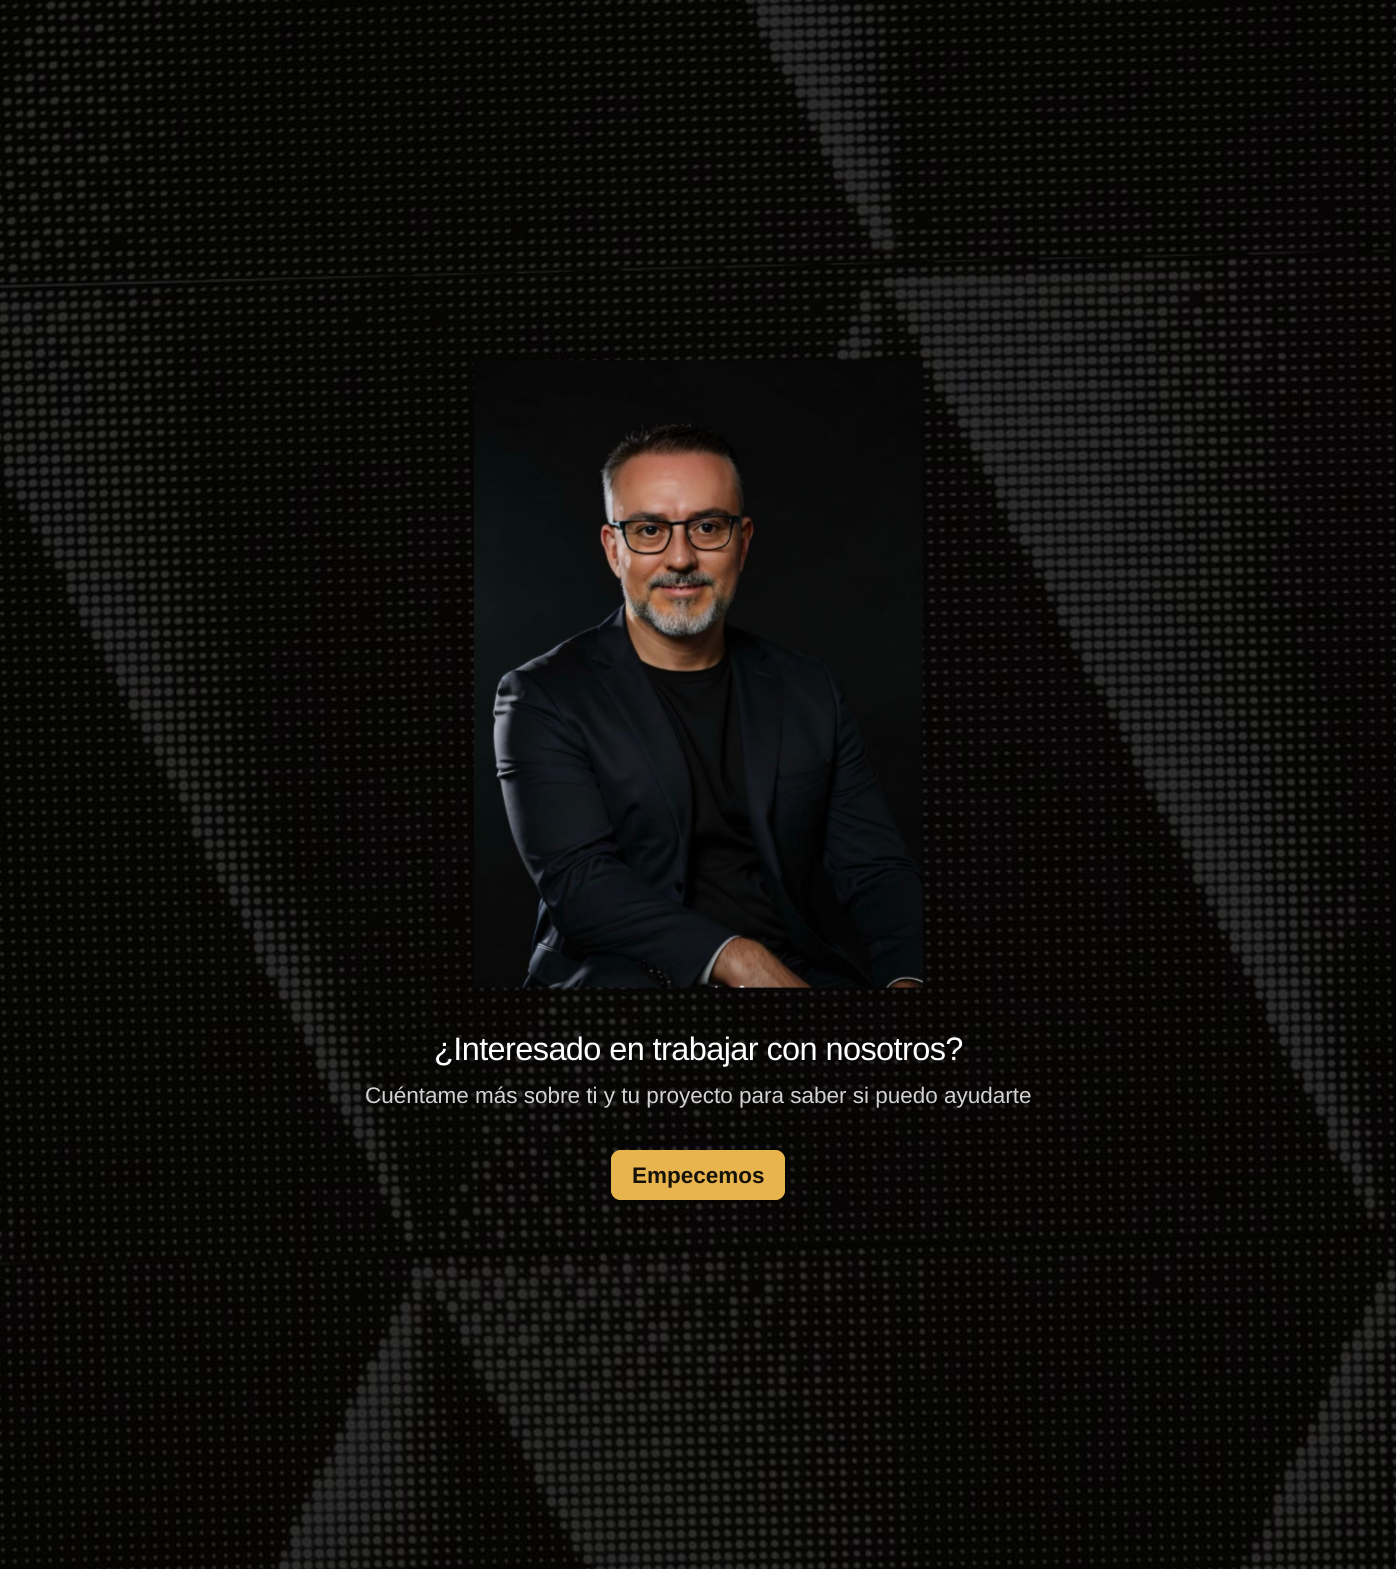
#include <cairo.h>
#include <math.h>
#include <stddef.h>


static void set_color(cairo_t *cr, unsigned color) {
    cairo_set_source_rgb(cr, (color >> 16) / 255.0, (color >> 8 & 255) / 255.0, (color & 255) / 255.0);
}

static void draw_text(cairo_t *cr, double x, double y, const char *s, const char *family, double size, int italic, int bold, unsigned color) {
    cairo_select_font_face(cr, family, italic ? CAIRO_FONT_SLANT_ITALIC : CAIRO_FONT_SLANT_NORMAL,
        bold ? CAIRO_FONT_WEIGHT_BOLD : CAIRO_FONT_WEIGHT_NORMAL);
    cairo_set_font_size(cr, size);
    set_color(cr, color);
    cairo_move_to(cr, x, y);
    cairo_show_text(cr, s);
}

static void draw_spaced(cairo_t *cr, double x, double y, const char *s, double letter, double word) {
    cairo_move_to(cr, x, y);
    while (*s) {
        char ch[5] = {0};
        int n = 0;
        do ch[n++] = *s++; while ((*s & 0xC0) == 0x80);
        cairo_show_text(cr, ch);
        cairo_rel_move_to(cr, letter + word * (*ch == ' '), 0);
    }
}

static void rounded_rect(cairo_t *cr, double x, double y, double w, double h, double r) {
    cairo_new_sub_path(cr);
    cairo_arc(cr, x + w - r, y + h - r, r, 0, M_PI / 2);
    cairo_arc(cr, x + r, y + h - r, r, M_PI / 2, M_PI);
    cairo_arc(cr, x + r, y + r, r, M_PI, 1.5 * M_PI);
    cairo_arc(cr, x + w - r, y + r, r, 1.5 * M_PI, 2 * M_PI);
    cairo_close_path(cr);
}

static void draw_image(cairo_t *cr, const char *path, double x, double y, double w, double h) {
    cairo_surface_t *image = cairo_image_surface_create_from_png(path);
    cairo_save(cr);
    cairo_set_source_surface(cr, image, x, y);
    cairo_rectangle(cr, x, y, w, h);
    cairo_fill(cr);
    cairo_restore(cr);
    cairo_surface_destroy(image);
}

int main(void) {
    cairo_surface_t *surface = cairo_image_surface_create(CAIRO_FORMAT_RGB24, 1396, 1569);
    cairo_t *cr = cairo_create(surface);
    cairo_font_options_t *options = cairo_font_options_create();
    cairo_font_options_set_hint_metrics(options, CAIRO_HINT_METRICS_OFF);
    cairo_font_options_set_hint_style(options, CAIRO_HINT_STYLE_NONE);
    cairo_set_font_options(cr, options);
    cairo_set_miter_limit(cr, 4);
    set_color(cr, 0xFFFFFF);
    cairo_paint(cr);
    draw_image(cr, "assets/img1.png", 0, 0, 1396, 1569);
    draw_image(cr, "assets/img2.png", 474, 359, 449, 629);
    cairo_select_font_face(cr, "Liberation Sans", CAIRO_FONT_SLANT_NORMAL, CAIRO_FONT_WEIGHT_NORMAL);
    cairo_set_font_size(cr, 32.5);
    set_color(cr, 0xFFFFFF);
    draw_spaced(cr, 434, 1060, "¿Interesado en trabajar con nosotros?", -0.6, 0);
    draw_text(cr, 365, 1103, "Cuéntame más sobre ti y tu proyecto para saber si puedo ayudarte", "Liberation Sans", 22.5, 0, 0, 0xD3D2D2);
    rounded_rect(cr, 611.5, 1150.5, 173, 49, 9.5);
    set_color(cr, 0xE7B44E);
    cairo_set_line_width(cr, 1);
    cairo_stroke(cr);
    rounded_rect(cr, 611, 1150, 174, 50, 10);
    cairo_fill(cr);
    draw_text(cr, 632, 1183, "Empecemos", "Liberation Sans", 22.5, 0, 1, 0x171208);
    cairo_surface_write_to_png(surface, "output.png");
    cairo_font_options_destroy(options);
    cairo_destroy(cr);
    cairo_surface_destroy(surface);
    return 0;
}
